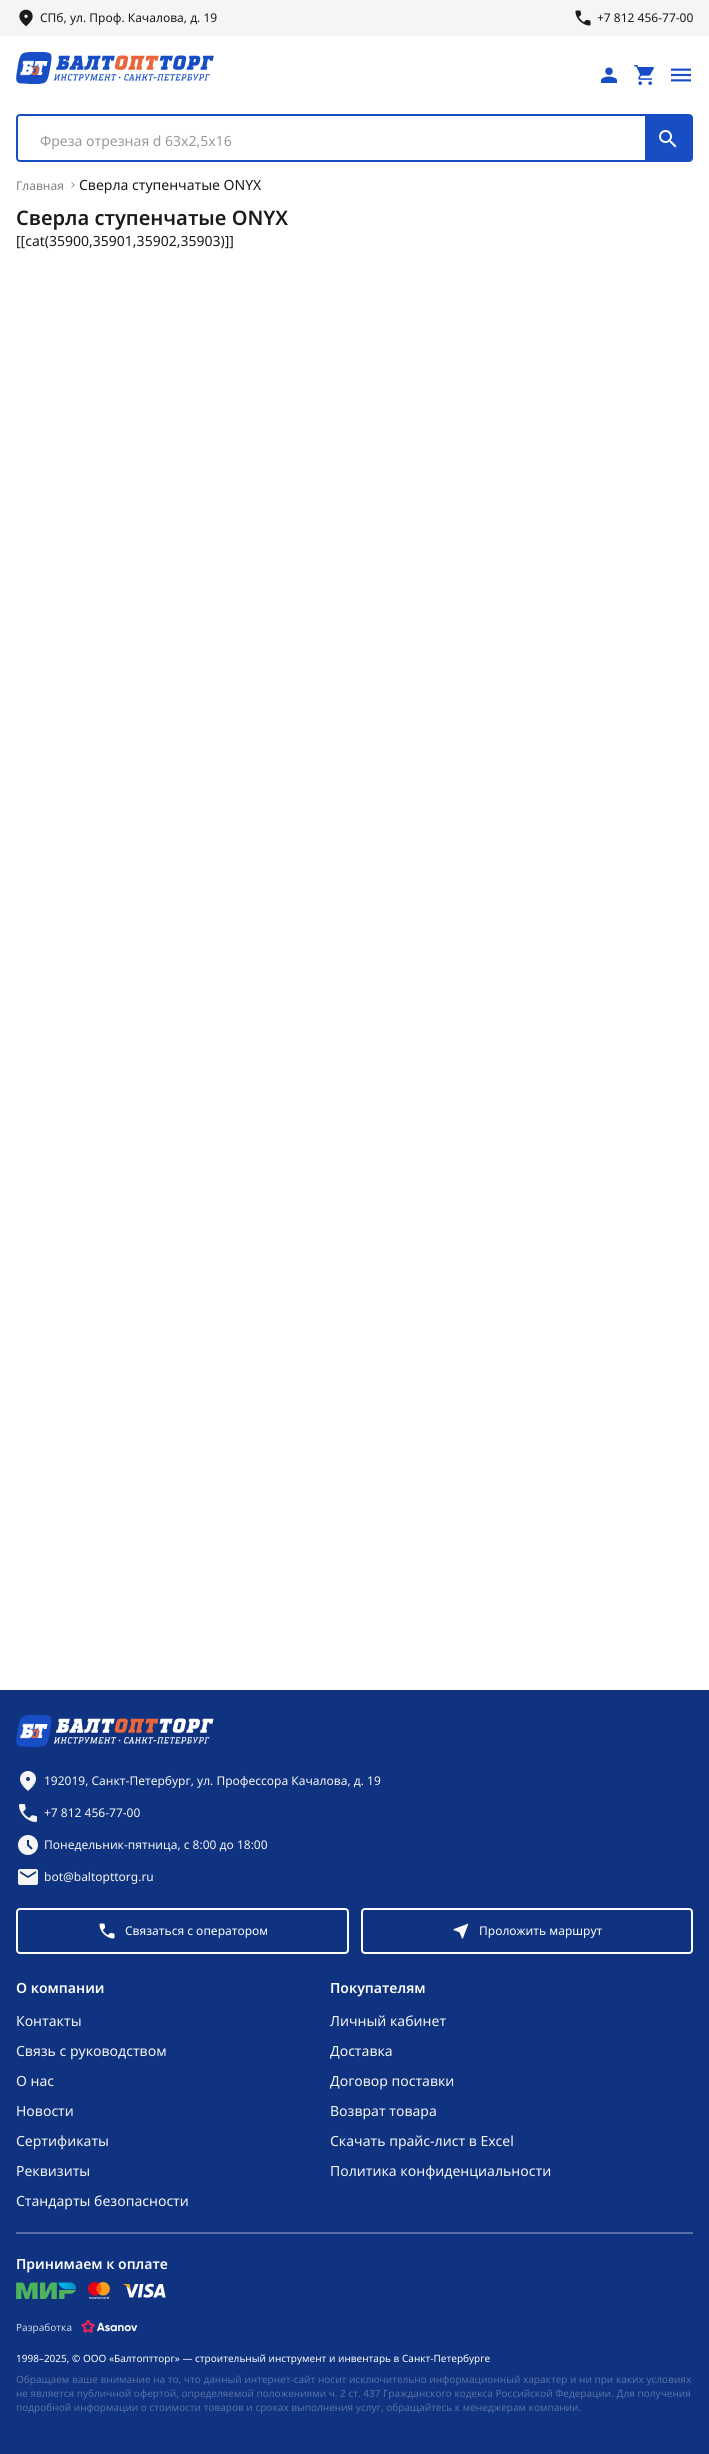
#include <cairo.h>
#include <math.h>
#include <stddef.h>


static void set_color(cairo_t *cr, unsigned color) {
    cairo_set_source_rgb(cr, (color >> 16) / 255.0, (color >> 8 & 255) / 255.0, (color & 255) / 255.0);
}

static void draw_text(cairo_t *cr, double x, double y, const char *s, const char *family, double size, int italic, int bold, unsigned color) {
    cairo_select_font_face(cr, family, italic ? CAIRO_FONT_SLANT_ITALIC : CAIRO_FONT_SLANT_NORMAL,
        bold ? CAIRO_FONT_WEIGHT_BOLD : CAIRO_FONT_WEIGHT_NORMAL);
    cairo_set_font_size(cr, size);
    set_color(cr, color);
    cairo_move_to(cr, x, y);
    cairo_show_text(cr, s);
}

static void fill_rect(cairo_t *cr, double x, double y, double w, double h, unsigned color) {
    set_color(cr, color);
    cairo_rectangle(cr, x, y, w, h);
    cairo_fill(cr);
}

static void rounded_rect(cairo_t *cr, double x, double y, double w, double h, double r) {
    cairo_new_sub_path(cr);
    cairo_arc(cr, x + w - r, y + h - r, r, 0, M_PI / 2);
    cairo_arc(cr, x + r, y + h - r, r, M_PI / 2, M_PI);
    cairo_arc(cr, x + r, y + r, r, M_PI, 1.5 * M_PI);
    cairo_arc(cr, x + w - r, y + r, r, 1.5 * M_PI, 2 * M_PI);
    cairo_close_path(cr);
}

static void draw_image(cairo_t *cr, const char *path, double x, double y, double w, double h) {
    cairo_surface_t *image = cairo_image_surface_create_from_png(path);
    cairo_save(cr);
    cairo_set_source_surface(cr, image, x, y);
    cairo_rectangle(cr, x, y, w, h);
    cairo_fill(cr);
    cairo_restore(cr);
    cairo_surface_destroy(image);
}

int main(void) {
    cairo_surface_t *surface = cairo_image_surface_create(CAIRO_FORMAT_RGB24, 709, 2454);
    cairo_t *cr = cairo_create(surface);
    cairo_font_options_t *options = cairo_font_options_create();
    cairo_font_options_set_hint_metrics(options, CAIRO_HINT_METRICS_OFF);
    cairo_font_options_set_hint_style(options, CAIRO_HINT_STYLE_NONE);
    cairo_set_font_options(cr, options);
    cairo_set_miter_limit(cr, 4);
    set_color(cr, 0xFFFFFF);
    cairo_paint(cr);
    fill_rect(cr, 0, 0, 709, 36, 0xF5F5F5);
    draw_image(cr, "assets/img1.png", 19, 9, 14, 18);
    draw_text(cr, 40, 22, "СПб, ул. Проф. Качалова, д. 19", "Noto Sans", 12, 0, 0, 0x1A1A1A);
    draw_image(cr, "assets/img2.png", 575, 10, 16, 16);
    draw_text(cr, 597, 22, "+7 812 456-77-00", "Noto Sans", 12, 0, 0, 0x1A1A1A);
    draw_image(cr, "assets/img3.png", 16, 52, 198, 32);
    draw_image(cr, "assets/img4.png", 601, 67, 16, 16);
    draw_image(cr, "assets/img5.png", 634, 65, 20, 20);
    draw_image(cr, "assets/img6.png", 671, 68, 20, 14);
    rounded_rect(cr, 17, 115, 675, 46, 3);
    set_color(cr, 0x174EC5);
    cairo_stroke(cr);
    draw_text(cr, 40, 146, "Фреза отрезная d 63х2,5х16", "Noto Sans", 14, 0, 0, 0x999999);
    fill_rect(cr, 645, 116, 46, 44, 0x174EC5);
    draw_image(cr, "assets/img7.png", 659, 130, 18, 18);
    draw_text(cr, 16, 190, "Главная", "Noto Sans", 12, 0, 0, 0x808080);
    draw_image(cr, "assets/img8.png", 71, 182, 4, 6);
    draw_text(cr, 79, 190, "Сверла ступенчатые ONYX", "Noto Sans", 14, 0, 0, 0x1A1A1A);
    draw_text(cr, 16, 225, "Сверла ступенчатые ONYX", "Noto Sans SemiBold", 20, 0, 0, 0x1A1A1A);
    draw_text(cr, 16, 246, "[[cat(35900,35901,35902,35903)]]", "Noto Sans", 14, 0, 0, 0x1A1A1A);
    fill_rect(cr, 0, 1690, 709, 764, 0x0F3380);
    fill_rect(cr, 16, 2232, 677, 2, 0x5770A6);
    draw_image(cr, "assets/img9.png", 16, 1715, 198, 32);
    draw_image(cr, "assets/img10.png", 20, 1771, 16, 20);
    draw_text(cr, 44, 1785, "192019, Санкт-Петербург, ул. Профессора Качалова, д. 19", "Noto Sans", 12, 0, 0, 0xF5F5F5);
    draw_image(cr, "assets/img11.png", 19, 1804, 18, 18);
    draw_text(cr, 44, 1817, "+7 812 456-77-00", "Noto Sans", 12, 0, 0, 0xF5F5F5);
    draw_image(cr, "assets/img12.png", 18, 1835, 20, 20);
    draw_text(cr, 44, 1849, "Понедельник-пятница, с 8:00 до 18:00", "Noto Sans", 12, 0, 0, 0xF5F5F5);
    draw_image(cr, "assets/img13.png", 18, 1869, 20, 16);
    draw_text(cr, 44, 1881, "bot@baltopttorg.ru", "Noto Sans", 12, 0, 0, 0xF5F5F5);
    rounded_rect(cr, 17, 1909, 331, 44, 3);
    set_color(cr, 0xFFFFFF);
    cairo_stroke(cr);
    draw_image(cr, "assets/img14.png", 99, 1923, 16, 16);
    draw_text(cr, 125, 1935, "Связаться с оператором", "Noto Sans", 12, 0, 0, 0xFFFFFF);
    rounded_rect(cr, 362, 1909, 330, 44, 3);
    cairo_stroke(cr);
    draw_image(cr, "assets/img15.png", 453, 1923, 16, 16);
    draw_text(cr, 479, 1935, "Проложить маршрут", "Noto Sans", 12, 0, 0, 0xFFFFFF);
    draw_text(cr, 16, 1993, "O компании", "Noto Sans SemiBold", 14, 0, 0, 0xFFFFFF);
    draw_text(cr, 16, 2026, "Контакты", "Noto Sans", 14, 0, 0, 0xF5F5F5);
    draw_text(cr, 16, 2056, "Связь с руководством", "Noto Sans", 14, 0, 0, 0xF5F5F5);
    draw_text(cr, 16, 2086, "О нас", "Noto Sans", 14, 0, 0, 0xF5F5F5);
    draw_text(cr, 16, 2116, "Новости", "Noto Sans", 14, 0, 0, 0xF5F5F5);
    draw_text(cr, 16, 2146, "Сертификаты", "Noto Sans", 14, 0, 0, 0xF5F5F5);
    draw_text(cr, 16, 2176, "Реквизиты", "Noto Sans", 14, 0, 0, 0xF5F5F5);
    draw_text(cr, 16, 2206, "Стандарты безопасности", "Noto Sans", 14, 0, 0, 0xF5F5F5);
    draw_text(cr, 330, 1993, "Покупателям", "Noto Sans SemiBold", 14, 0, 0, 0xFFFFFF);
    draw_text(cr, 330, 2026, "Личный кабинет", "Noto Sans", 14, 0, 0, 0xF5F5F5);
    draw_text(cr, 330, 2056, "Доставка", "Noto Sans", 14, 0, 0, 0xF5F5F5);
    draw_text(cr, 330, 2086, "Договор поставки", "Noto Sans", 14, 0, 0, 0xF5F5F5);
    draw_text(cr, 330, 2116, "Возврат товара", "Noto Sans", 14, 0, 0, 0xF5F5F5);
    draw_text(cr, 330, 2146, "Скачать прайс-лист в Excel", "Noto Sans", 14, 0, 0, 0xF5F5F5);
    draw_text(cr, 330, 2176, "Политика конфиденциальности", "Noto Sans", 14, 0, 0, 0xF5F5F5);
    draw_text(cr, 16, 2269, "Принимаем к оплате", "Noto Sans SemiBold", 14, 0, 0, 0xFFFFFF);
    draw_image(cr, "assets/img16.png", 16, 2282, 60, 17);
    draw_image(cr, "assets/img17.png", 88, 2282, 22, 17);
    draw_image(cr, "assets/img18.png", 123, 2283, 43, 15);
    draw_text(cr, 16, 2331, "Разработка", "Noto Sans", 10, 0, 0, 0xCFD6E6);
    draw_image(cr, "assets/img19.png", 81, 2320, 57, 13);
    draw_text(cr, 16, 2362, "1998–2025, © ООО «Балтоптторг» — строительный инструмент и инвентарь в Санкт-Петербурге", "Noto Sans", 10, 0, 0, 0xFFFFFF);
    draw_text(cr, 16, 2383, "Обращаем ваше внимание на то, что данный интернет-сайт носит исключительно информационный характер и ни при каких условиях", "Noto Sans", 10, 0, 0, 0x5770A6);
    draw_text(cr, 16, 2397, "не является публичной офертой, определяемой положениями ч. 2 ст. 437 Гражданского кодекса Российской Федерации. Для получения", "Noto Sans", 10, 0, 0, 0x5770A6);
    draw_text(cr, 16, 2411, "подробной информации о стоимости товаров и сроках выполнения услуг, обращайтесь к менеджерам компании.", "Noto Sans", 10, 0, 0, 0x5770A6);
    cairo_surface_write_to_png(surface, "output.png");
    cairo_font_options_destroy(options);
    cairo_destroy(cr);
    cairo_surface_destroy(surface);
    return 0;
}
